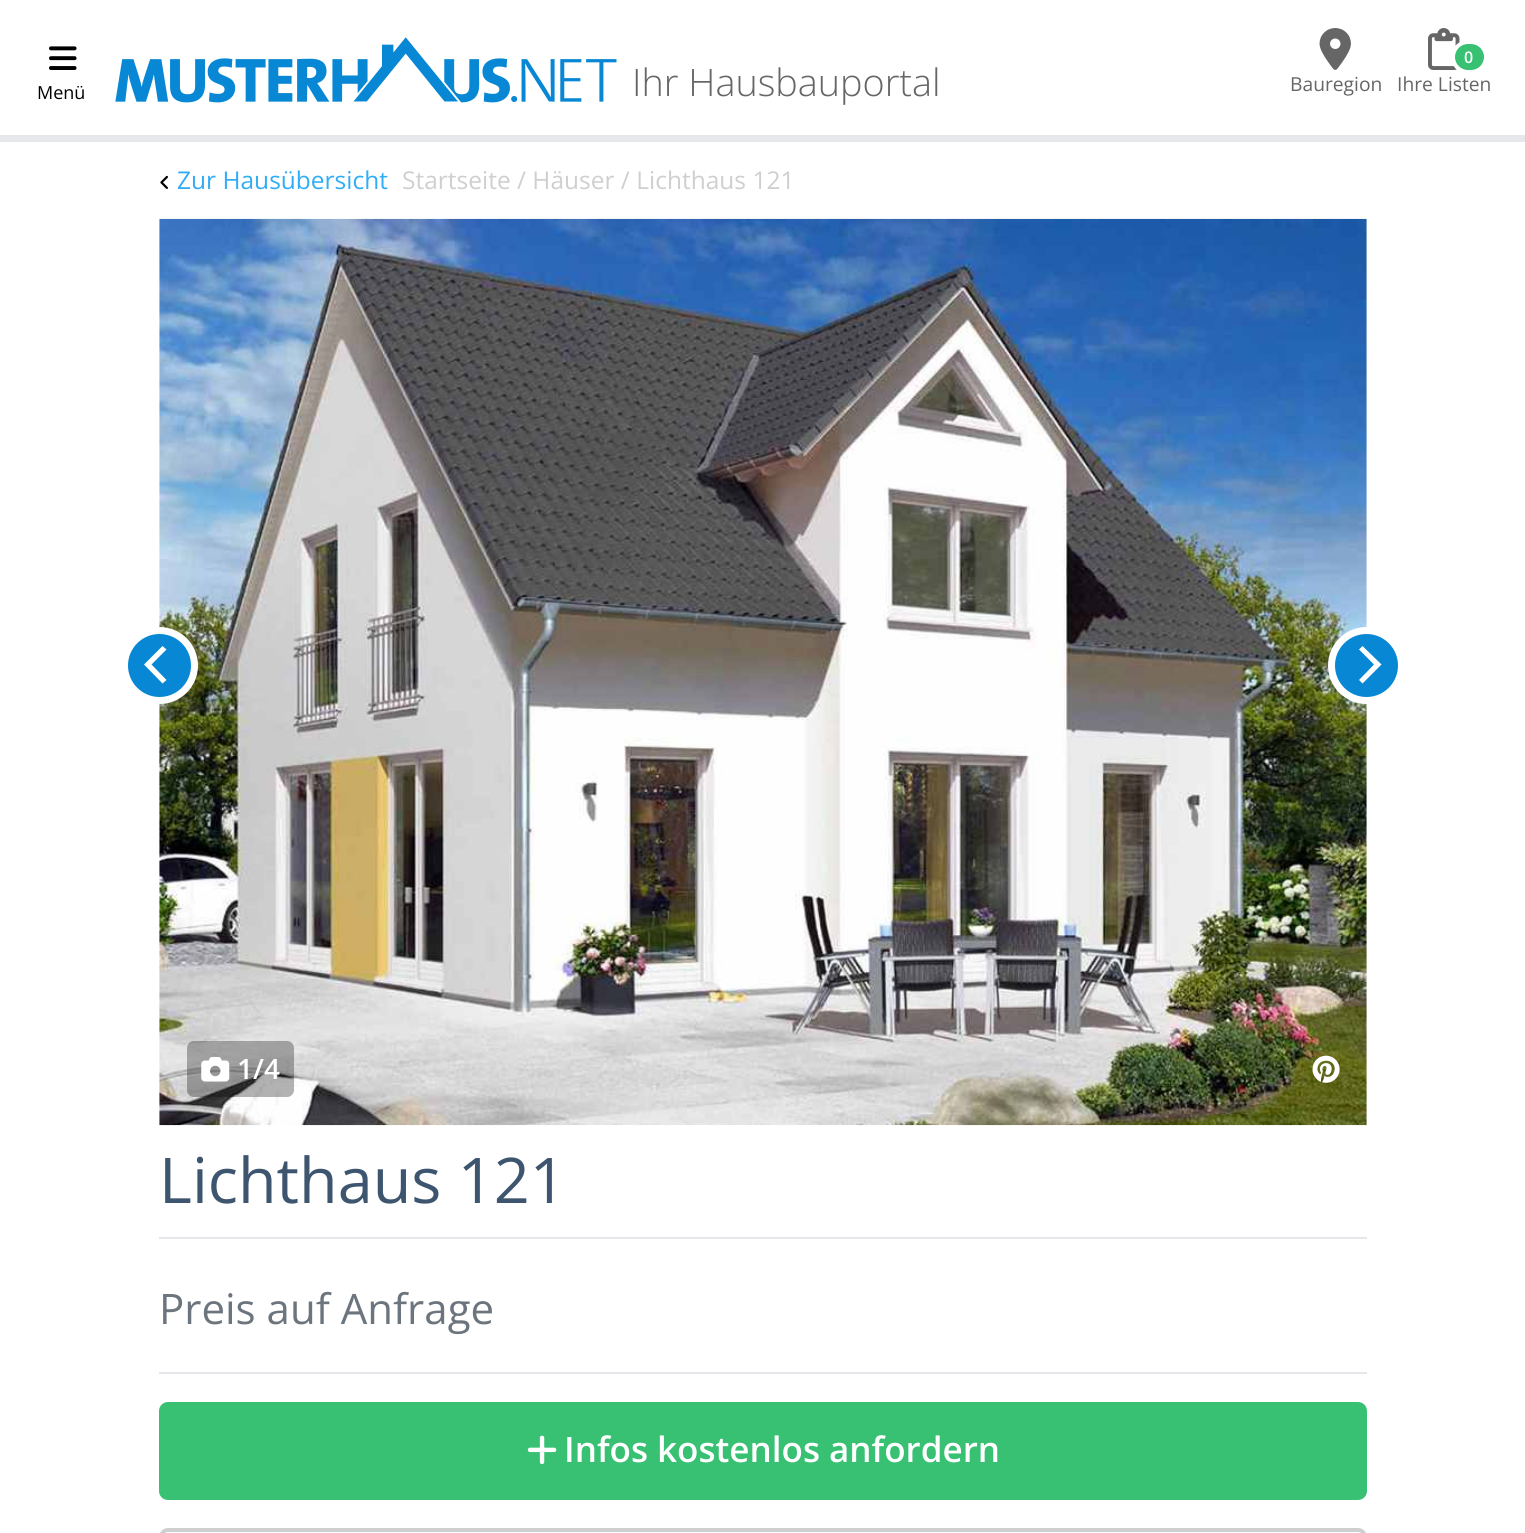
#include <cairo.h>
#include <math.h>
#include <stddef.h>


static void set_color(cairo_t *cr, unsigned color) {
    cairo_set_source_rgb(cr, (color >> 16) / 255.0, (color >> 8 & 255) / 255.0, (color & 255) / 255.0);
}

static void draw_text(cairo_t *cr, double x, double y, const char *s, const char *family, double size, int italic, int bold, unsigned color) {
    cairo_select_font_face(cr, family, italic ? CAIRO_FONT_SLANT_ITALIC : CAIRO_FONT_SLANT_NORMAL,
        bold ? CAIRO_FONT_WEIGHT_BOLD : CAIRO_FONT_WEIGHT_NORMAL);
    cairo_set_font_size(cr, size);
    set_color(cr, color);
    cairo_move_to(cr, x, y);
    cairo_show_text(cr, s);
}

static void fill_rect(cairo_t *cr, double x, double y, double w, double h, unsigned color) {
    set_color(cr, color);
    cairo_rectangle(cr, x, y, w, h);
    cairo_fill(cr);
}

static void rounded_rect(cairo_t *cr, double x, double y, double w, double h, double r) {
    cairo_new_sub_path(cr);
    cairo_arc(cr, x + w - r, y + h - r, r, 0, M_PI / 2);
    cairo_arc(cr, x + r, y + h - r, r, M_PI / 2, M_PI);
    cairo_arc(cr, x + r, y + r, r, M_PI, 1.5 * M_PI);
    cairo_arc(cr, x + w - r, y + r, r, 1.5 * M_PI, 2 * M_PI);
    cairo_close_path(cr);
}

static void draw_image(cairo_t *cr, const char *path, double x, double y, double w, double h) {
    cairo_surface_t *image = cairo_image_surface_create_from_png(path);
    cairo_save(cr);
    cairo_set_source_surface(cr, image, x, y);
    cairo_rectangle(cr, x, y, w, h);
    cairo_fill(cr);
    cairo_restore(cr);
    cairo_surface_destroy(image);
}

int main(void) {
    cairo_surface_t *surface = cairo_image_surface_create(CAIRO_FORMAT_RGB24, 1525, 1533);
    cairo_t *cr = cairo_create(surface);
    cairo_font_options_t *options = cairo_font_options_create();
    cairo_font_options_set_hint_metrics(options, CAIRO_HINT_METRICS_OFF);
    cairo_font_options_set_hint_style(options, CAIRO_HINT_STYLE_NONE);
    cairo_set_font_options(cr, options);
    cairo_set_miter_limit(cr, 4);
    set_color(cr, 0xFFFFFF);
    cairo_paint(cr);
    draw_image(cr, "assets/img1.png", 49, 46, 28, 24);
    draw_text(cr, 37, 99, "Menü", "Open Sans", 18, 0, 0, 0x000000);
    draw_image(cr, "assets/img2.png", 115, 37, 502, 66);
    draw_text(cr, 632, 96, "Ihr Hausbauportal", "Open Sans Light", 37.75, 0, 0, 0x666666);
    draw_image(cr, "assets/img3.png", 1319, 28, 32, 42);
    draw_text(cr, 1290, 91, "Bauregion", "Open Sans", 19.25, 0, 0, 0x666666);
    draw_image(cr, "assets/img4.png", 1428, 28, 32, 42);
    set_color(cr, 0x38C172);
    rounded_rect(cr, 1453, 42, 33, 30, 15);
    cairo_fill_preserve(cr);
    set_color(cr, 0xFFFFFF);
    cairo_set_line_width(cr, 4);
    cairo_stroke(cr);
    draw_text(cr, 1464, 63, "0", "Open Sans SemiBold", 16, 0, 0, 0xFFFFFF);
    draw_text(cr, 1397, 91, "Ihre Listen", "Open Sans", 19.25, 0, 0, 0x666666);
    fill_rect(cr, 0, 135, 1525, 7, 0xE5E7EB);
    draw_image(cr, "assets/img5.png", 160, 175, 8, 14);
    draw_text(cr, 177, 189, "Zur Hausübersicht", "Open Sans", 24.5, 0, 0, 0x31ADF7);
    draw_text(cr, 402, 189, "Startseite / Häuser / Lichthaus 121", "Open Sans", 24.5, 0, 0, 0xCFCFCF);
    draw_image(cr, "assets/img6.png", 159, 218, 1208, 908);
    set_color(cr, 0x0887D4);
    cairo_arc(cr, 159.5, 665.5, 35, 0, 2 * M_PI);
    cairo_fill_preserve(cr);
    set_color(cr, 0xFFFFFF);
    cairo_set_line_width(cr, 7);
    cairo_stroke(cr);
    cairo_new_path(cr);
    cairo_move_to(cr, 144, 664.5);
    cairo_line_to(cr, 162.5, 683.5);
    cairo_line_to(cr, 166.5, 680);
    cairo_line_to(cr, 151.5, 664.5);
    cairo_line_to(cr, 166.5, 649.5);
    cairo_line_to(cr, 162.5, 646);
    cairo_close_path(cr);
    cairo_fill(cr);
    set_color(cr, 0x0887D4);
    cairo_arc(cr, 1366.5, 665.5, 35, 0, 2 * M_PI);
    cairo_fill_preserve(cr);
    set_color(cr, 0xFFFFFF);
    cairo_stroke(cr);
    cairo_new_path(cr);
    cairo_move_to(cr, 1381.5, 664.5);
    cairo_line_to(cr, 1362.5, 646);
    cairo_line_to(cr, 1359, 649.5);
    cairo_line_to(cr, 1374, 664.5);
    cairo_line_to(cr, 1359, 680);
    cairo_line_to(cr, 1362.5, 683.5);
    cairo_close_path(cr);
    cairo_fill(cr);
    cairo_set_source_rgba(cr, 0, 0, 0, 0.3);
    rounded_rect(cr, 187, 1041, 107, 56, 7);
    cairo_fill(cr);
    draw_image(cr, "assets/img7.png", 201, 1057, 29, 25);
    draw_text(cr, 237, 1079, "1/4", "Open Sans SemiBold", 28, 0, 0, 0xFFFFFF);
    draw_image(cr, "assets/img8.png", 1312, 1055, 28, 28);
    draw_text(cr, 159, 1203, "Lichthaus 121", "Open Sans", 63, 0, 0, 0x3D556F);
    fill_rect(cr, 159, 1237, 1208, 2, 0xE5E7EB);
    draw_text(cr, 159, 1324, "Preis auf Anfrage", "Open Sans", 42, 0, 0, 0x6C757D);
    fill_rect(cr, 159, 1372, 1208, 2, 0xE5E7EB);
    set_color(cr, 0x38C172);
    rounded_rect(cr, 161, 1404, 1204, 94, 7);
    cairo_fill_preserve(cr);
    cairo_set_line_width(cr, 4);
    cairo_stroke(cr);
    draw_image(cr, "assets/img9.png", 527, 1435, 30, 30);
    draw_text(cr, 564, 1462, "Infos kostenlos anfordern", "Open Sans SemiBold", 35, 0, 0, 0xFFFFFF);
    rounded_rect(cr, 161, 1530, 1204, 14, 7);
    set_color(cr, 0xCFCFCF);
    cairo_stroke(cr);
    cairo_surface_write_to_png(surface, "output.png");
    cairo_font_options_destroy(options);
    cairo_destroy(cr);
    cairo_surface_destroy(surface);
    return 0;
}
